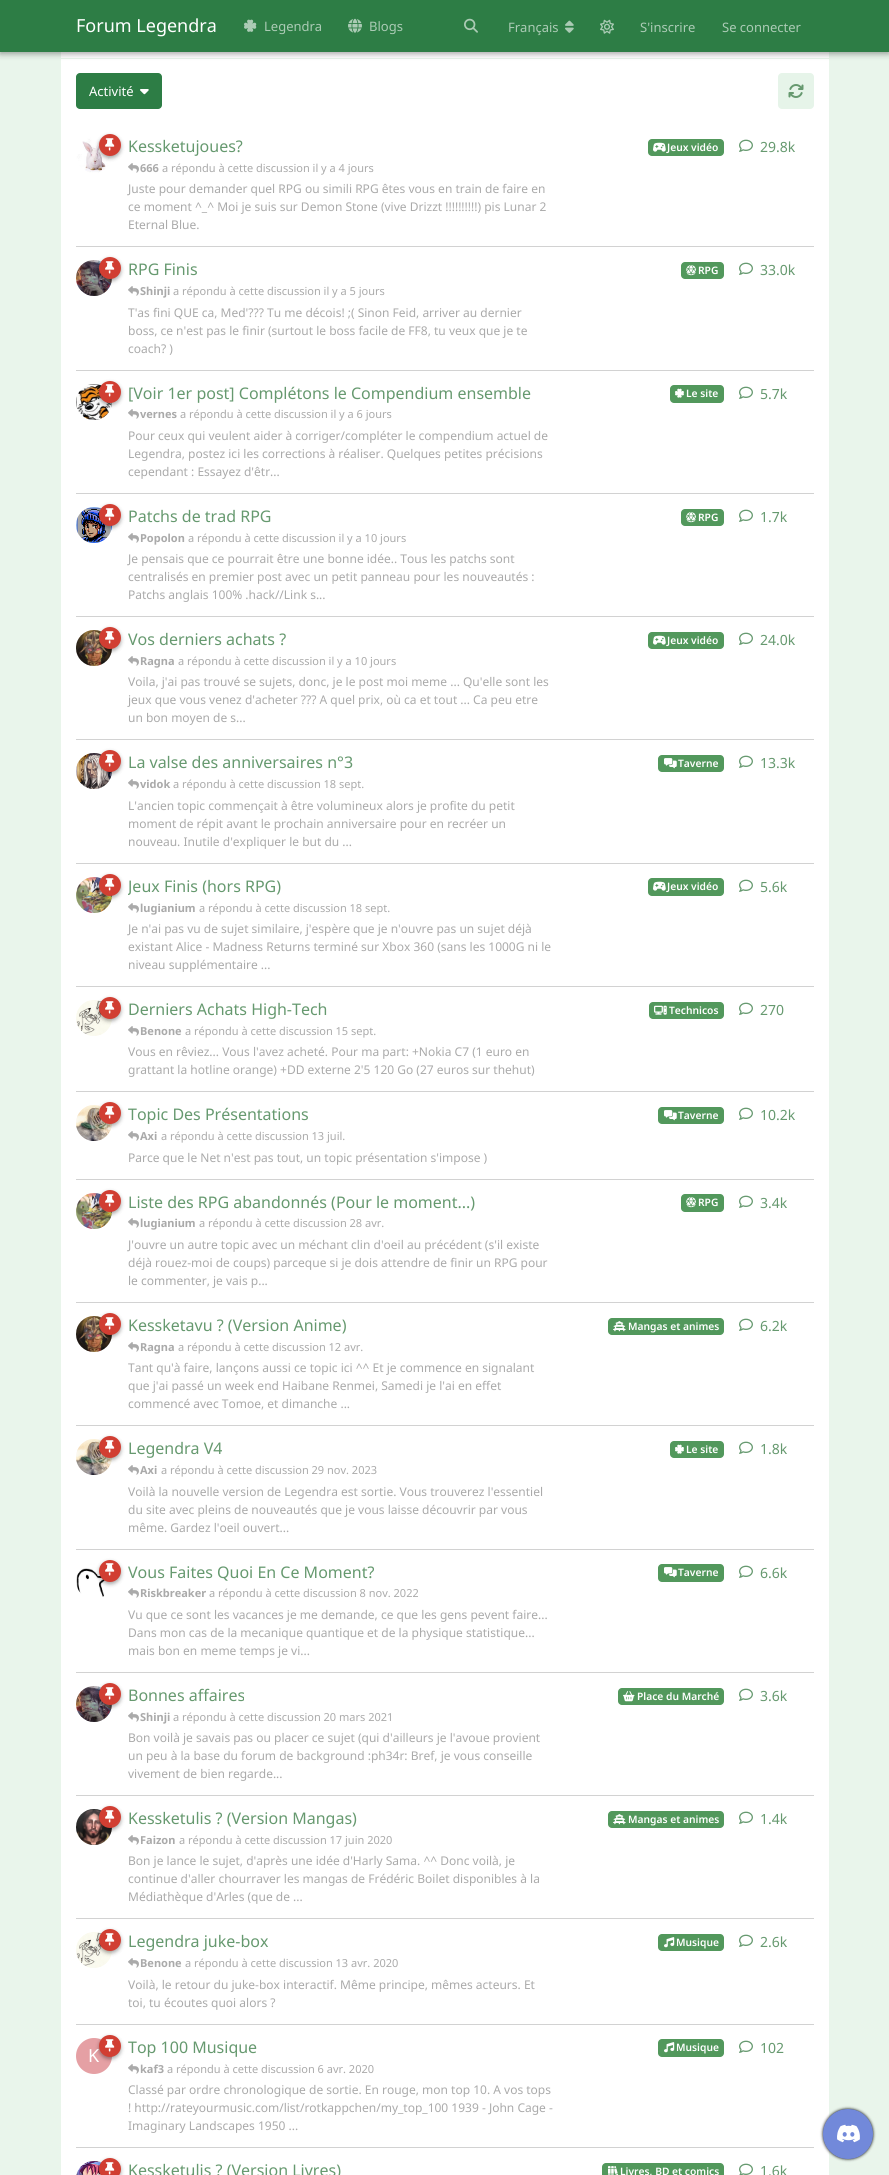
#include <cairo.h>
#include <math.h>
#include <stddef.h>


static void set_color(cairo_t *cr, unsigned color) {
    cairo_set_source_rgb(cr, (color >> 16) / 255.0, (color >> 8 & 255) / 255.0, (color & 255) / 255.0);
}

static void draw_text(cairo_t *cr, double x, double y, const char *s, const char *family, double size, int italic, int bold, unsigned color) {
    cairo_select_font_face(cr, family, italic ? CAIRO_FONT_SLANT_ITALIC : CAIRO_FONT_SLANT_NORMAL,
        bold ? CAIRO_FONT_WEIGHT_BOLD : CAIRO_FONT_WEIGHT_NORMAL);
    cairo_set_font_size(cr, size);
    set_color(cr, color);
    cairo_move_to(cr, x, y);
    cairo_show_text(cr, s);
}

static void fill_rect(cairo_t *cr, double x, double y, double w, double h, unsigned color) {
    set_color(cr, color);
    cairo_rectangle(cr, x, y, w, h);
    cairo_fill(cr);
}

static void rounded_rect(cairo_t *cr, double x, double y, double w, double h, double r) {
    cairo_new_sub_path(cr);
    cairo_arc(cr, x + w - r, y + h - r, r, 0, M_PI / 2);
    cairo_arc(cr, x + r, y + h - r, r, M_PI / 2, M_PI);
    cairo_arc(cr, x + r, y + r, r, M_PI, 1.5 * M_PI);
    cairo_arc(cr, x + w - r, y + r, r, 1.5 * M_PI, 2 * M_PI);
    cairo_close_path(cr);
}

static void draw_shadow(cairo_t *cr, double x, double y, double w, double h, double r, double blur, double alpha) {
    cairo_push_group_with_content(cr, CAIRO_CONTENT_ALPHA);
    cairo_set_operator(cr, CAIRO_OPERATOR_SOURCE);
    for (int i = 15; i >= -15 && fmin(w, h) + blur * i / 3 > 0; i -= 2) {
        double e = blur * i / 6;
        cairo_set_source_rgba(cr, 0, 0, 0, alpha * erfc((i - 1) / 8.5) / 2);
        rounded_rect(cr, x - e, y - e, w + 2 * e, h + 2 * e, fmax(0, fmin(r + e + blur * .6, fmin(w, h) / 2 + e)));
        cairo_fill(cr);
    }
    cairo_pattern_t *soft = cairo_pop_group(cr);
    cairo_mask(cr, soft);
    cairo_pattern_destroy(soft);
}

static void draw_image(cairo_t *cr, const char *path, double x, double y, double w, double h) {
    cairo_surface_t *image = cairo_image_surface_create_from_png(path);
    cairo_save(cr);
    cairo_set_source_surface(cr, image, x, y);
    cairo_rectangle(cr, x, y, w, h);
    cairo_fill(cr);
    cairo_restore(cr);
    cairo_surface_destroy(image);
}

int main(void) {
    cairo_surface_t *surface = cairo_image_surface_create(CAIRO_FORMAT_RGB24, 889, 2175);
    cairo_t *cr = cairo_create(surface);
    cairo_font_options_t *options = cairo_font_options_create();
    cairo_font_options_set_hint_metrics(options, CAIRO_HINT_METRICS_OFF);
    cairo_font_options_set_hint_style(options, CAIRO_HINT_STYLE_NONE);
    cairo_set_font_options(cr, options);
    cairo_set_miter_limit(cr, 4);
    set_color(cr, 0xE9F5EB);
    cairo_paint(cr);
    fill_rect(cr, 61, 52, 768, 2123, 0xFFFFFF);
    fill_rect(cr, 0, 58, 889, 1, 0xE6F4E9);
    set_color(cr, 0x000000);
    draw_shadow(cr, 0, 2, 889, 52, 0, 3, 0.35);
    fill_rect(cr, 0, 0, 889, 52, 0x2D7D45);
    draw_text(cr, 76, 32, "Forum Legendra", "Noto Sans", 18, 0, 0, 0xFFFFFF);
    draw_image(cr, "assets/img1.png", 244, 19, 13, 13);
    draw_text(cr, 264, 31, "Legendra", "Noto Sans", 13, 0, 0, 0xABCBB5);
    draw_image(cr, "assets/img2.png", 348, 18, 14, 15);
    draw_text(cr, 369, 31, "Blogs", "Noto Sans", 13, 0, 0, 0xABCBB5);
    draw_image(cr, "assets/img3.png", 464, 18, 14, 15);
    draw_text(cr, 508, 32, "Français", "Noto Sans", 13, 0, 0, 0xABCBB5);
    draw_image(cr, "assets/img4.png", 565, 20, 9, 13);
    draw_image(cr, "assets/img5.png", 600, 19, 14, 15);
    draw_text(cr, 640, 32, "S'inscrire", "Noto Sans", 13, 0, 0, 0xABCBB5);
    draw_text(cr, 722, 32, "Se connecter", "Noto Sans", 13, 0, 0, 0xABCBB5);
    set_color(cr, 0x2D7D45);
    rounded_rect(cr, 76, 73, 86, 36, 4);
    cairo_fill(cr);
    draw_text(cr, 89, 96, "Activité", "Noto Sans", 13, 0, 0, 0xFFFFFF);
    draw_image(cr, "assets/img6.png", 140, 89, 9, 6);
    set_color(cr, 0xE6F4E9);
    rounded_rect(cr, 778, 73, 36, 36, 4);
    cairo_fill(cr);
    draw_image(cr, "assets/img7.png", 788, 84, 16, 14);
    fill_rect(cr, 76, 246, 738, 1, 0xD2D2D2);
    draw_image(cr, "assets/img9.png", 76, 137, 36, 36);
    set_color(cr, 0x000000);
    draw_shadow(cr, 99, 136, 22, 22, 11, 2, 0.35);
    set_color(cr, 0xD13E32);
    cairo_arc(cr, 110, 145, 11, 0, 2 * M_PI);
    cairo_fill(cr);
    draw_image(cr, "assets/img8.png", 105, 138, 10, 13);
    draw_text(cr, 128, 152, "Kessketujoues?", "Noto Sans", 16, 0, 0, 0x66996F);
    set_color(cr, 0x52985C);
    rounded_rect(cr, 648, 139, 76, 17, 4);
    cairo_fill(cr);
    draw_image(cr, "assets/img10.png", 653, 142, 13, 10);
    draw_text(cr, 667, 151, "Jeux vidéo", "Noto Sans SemiBold", 10.25, 0, 0, 0xFFFFFF);
    draw_image(cr, "assets/img11.png", 128, 163, 11, 10);
    draw_text(cr, 140, 172, "666", "Noto Sans", 11, 0, 1, 0xAAAAAA);
    draw_text(cr, 162, 172, "a répondu à cette discussion il y a 4 jours", "Noto Sans", 11, 0, 0, 0xAAAAAA);
    draw_text(cr, 128, 193, "Juste pour demander quel RPG ou simili RPG êtes vous en train de faire en", "Noto Sans", 12, 0, 0, 0xAAAAAA);
    draw_text(cr, 128, 211, "ce moment ^_^ Moi je suis sur Demon Stone (vive Drizzt !!!!!!!!!!) pis Lunar 2", "Noto Sans", 12, 0, 0, 0xAAAAAA);
    draw_text(cr, 128, 229, "Eternal Blue.", "Noto Sans", 12, 0, 0, 0xAAAAAA);
    draw_image(cr, "assets/img12.png", 739, 139, 14, 13);
    draw_text(cr, 760, 152, "29.8k", "Noto Sans", 14, 0, 0, 0x66996F);
    fill_rect(cr, 76, 370, 738, 1, 0xD2D2D2);
    draw_image(cr, "assets/img13.png", 76, 260, 36, 36);
    set_color(cr, 0x000000);
    draw_shadow(cr, 99, 259, 22, 22, 11, 2, 0.35);
    set_color(cr, 0xD13E32);
    cairo_arc(cr, 110, 268, 11, 0, 2 * M_PI);
    cairo_fill(cr);
    draw_image(cr, "assets/img8.png", 105, 261, 10, 13);
    draw_text(cr, 128, 275, "RPG Finis", "Noto Sans", 16, 0, 0, 0x66996F);
    set_color(cr, 0x52985C);
    rounded_rect(cr, 681, 262, 43, 17, 4);
    cairo_fill(cr);
    draw_image(cr, "assets/img14.png", 686, 265, 10, 11);
    draw_text(cr, 698, 274, "RPG", "Noto Sans SemiBold", 10.25, 0, 0, 0xFFFFFF);
    draw_image(cr, "assets/img11.png", 128, 286, 11, 10);
    draw_text(cr, 140, 295, "Shinji", "Noto Sans", 11, 0, 1, 0xAAAAAA);
    draw_text(cr, 173, 295, "a répondu à cette discussion il y a 5 jours", "Noto Sans", 11, 0, 0, 0xAAAAAA);
    draw_text(cr, 128, 317, "T'as fini QUE ca, Med'?\077? Tu me décois! ;( Sinon Feid, arriver au dernier", "Noto Sans", 12, 0, 0, 0xAAAAAA);
    draw_text(cr, 128, 335, "boss, ce n'est pas le finir (surtout le boss facile de FF8, tu veux que je te", "Noto Sans", 12, 0, 0, 0xAAAAAA);
    draw_text(cr, 128, 353, "coach? )", "Noto Sans", 12, 0, 0, 0xAAAAAA);
    draw_image(cr, "assets/img12.png", 739, 262, 14, 13);
    draw_text(cr, 760, 275, "33.0k", "Noto Sans", 14, 0, 0, 0x66996F);
    fill_rect(cr, 76, 493, 738, 1, 0xD2D2D2);
    draw_image(cr, "assets/img15.png", 76, 384, 36, 36);
    set_color(cr, 0x000000);
    draw_shadow(cr, 99, 383, 22, 22, 11, 2, 0.35);
    set_color(cr, 0xD13E32);
    cairo_arc(cr, 110, 392, 11, 0, 2 * M_PI);
    cairo_fill(cr);
    draw_image(cr, "assets/img8.png", 105, 384, 10, 13);
    draw_text(cr, 128, 399, "[Voir 1er post] Complétons le Compendium ensemble", "Noto Sans", 16, 0, 0, 0x66996F);
    set_color(cr, 0x52985C);
    rounded_rect(cr, 670, 385, 54, 18, 4);
    cairo_fill(cr);
    draw_image(cr, "assets/img16.png", 675, 388, 9, 10);
    draw_text(cr, 686, 397, "Le site", "Noto Sans SemiBold", 10.25, 0, 0, 0xFFFFFF);
    draw_image(cr, "assets/img11.png", 128, 409, 11, 10);
    draw_text(cr, 140, 418, "vernes", "Noto Sans", 11, 0, 1, 0xAAAAAA);
    draw_text(cr, 180, 418, "a répondu à cette discussion il y a 6 jours", "Noto Sans", 11, 0, 0, 0xAAAAAA);
    draw_text(cr, 128, 440, "Pour ceux qui veulent aider à corriger/compléter le compendium actuel de", "Noto Sans", 12, 0, 0, 0xAAAAAA);
    draw_text(cr, 128, 458, "Legendra, postez ici les corrections à réaliser. Quelques petites précisions", "Noto Sans", 12, 0, 0, 0xAAAAAA);
    draw_text(cr, 128, 476, "cependant : Essayez d'êtr...", "Noto Sans", 12, 0, 0, 0xAAAAAA);
    draw_image(cr, "assets/img12.png", 739, 386, 14, 13);
    draw_text(cr, 760, 399, "5.7k", "Noto Sans", 14, 0, 0, 0x66996F);
    fill_rect(cr, 76, 616, 738, 1, 0xD2D2D2);
    draw_image(cr, "assets/img17.png", 76, 507, 36, 36);
    set_color(cr, 0x000000);
    draw_shadow(cr, 99, 506, 22, 22, 11, 2, 0.35);
    set_color(cr, 0xD13E32);
    cairo_arc(cr, 110, 515, 11, 0, 2 * M_PI);
    cairo_fill(cr);
    draw_image(cr, "assets/img8.png", 105, 508, 10, 13);
    draw_text(cr, 128, 522, "Patchs de trad RPG", "Noto Sans", 16, 0, 0, 0x66996F);
    set_color(cr, 0x52985C);
    rounded_rect(cr, 681, 509, 43, 17, 4);
    cairo_fill(cr);
    draw_image(cr, "assets/img14.png", 686, 512, 10, 11);
    draw_text(cr, 698, 521, "RPG", "Noto Sans SemiBold", 10.25, 0, 0, 0xFFFFFF);
    draw_image(cr, "assets/img11.png", 128, 533, 11, 10);
    draw_text(cr, 140, 542, "Popolon", "Noto Sans", 11, 0, 1, 0xAAAAAA);
    draw_text(cr, 188, 542, "a répondu à cette discussion il y a 10 jours", "Noto Sans", 11, 0, 0, 0xAAAAAA);
    draw_text(cr, 128, 563, "Je pensais que ce pourrait être une bonne idée.. Tous les patchs sont", "Noto Sans", 12, 0, 0, 0xAAAAAA);
    draw_text(cr, 128, 581, "centralisés en premier post avec un petit panneau pour les nouveautés :", "Noto Sans", 12, 0, 0, 0xAAAAAA);
    draw_text(cr, 128, 599, "Patchs anglais 100% .hack//Link s...", "Noto Sans", 12, 0, 0, 0xAAAAAA);
    draw_image(cr, "assets/img12.png", 739, 509, 14, 13);
    draw_text(cr, 760, 522, "1.7k", "Noto Sans", 14, 0, 0, 0x66996F);
    fill_rect(cr, 76, 739, 738, 1, 0xD2D2D2);
    draw_image(cr, "assets/img18.png", 76, 630, 36, 36);
    set_color(cr, 0x000000);
    draw_shadow(cr, 99, 629, 22, 22, 11, 2, 0.35);
    set_color(cr, 0xD13E32);
    cairo_arc(cr, 110, 638, 11, 0, 2 * M_PI);
    cairo_fill(cr);
    draw_image(cr, "assets/img8.png", 105, 631, 10, 13);
    draw_text(cr, 128, 645, "Vos derniers achats ?", "Noto Sans", 16, 0, 0, 0x66996F);
    set_color(cr, 0x52985C);
    rounded_rect(cr, 648, 632, 76, 17, 4);
    cairo_fill(cr);
    draw_image(cr, "assets/img10.png", 653, 635, 13, 10);
    draw_text(cr, 667, 644, "Jeux vidéo", "Noto Sans SemiBold", 10.25, 0, 0, 0xFFFFFF);
    draw_image(cr, "assets/img11.png", 128, 656, 11, 10);
    draw_text(cr, 140, 665, "Ragna", "Noto Sans", 11, 0, 1, 0xAAAAAA);
    draw_text(cr, 178, 665, "a répondu à cette discussion il y a 10 jours", "Noto Sans", 11, 0, 0, 0xAAAAAA);
    draw_text(cr, 128, 686, "Voila, j'ai pas trouvé se sujets, donc, je le post moi meme ... Qu'elle sont les", "Noto Sans", 12, 0, 0, 0xAAAAAA);
    draw_text(cr, 128, 704, "jeux que vous venez d'acheter ?\077? A quel prix, où ca et tout ... Ca peu etre", "Noto Sans", 12, 0, 0, 0xAAAAAA);
    draw_text(cr, 128, 722, "un bon moyen de s...", "Noto Sans", 12, 0, 0, 0xAAAAAA);
    draw_image(cr, "assets/img12.png", 739, 632, 14, 13);
    draw_text(cr, 760, 645, "24.0k", "Noto Sans", 14, 0, 0, 0x66996F);
    fill_rect(cr, 76, 863, 738, 1, 0xD2D2D2);
    draw_image(cr, "assets/img19.png", 76, 753, 36, 36);
    set_color(cr, 0x000000);
    draw_shadow(cr, 99, 752, 22, 22, 11, 2, 0.35);
    set_color(cr, 0xD13E32);
    cairo_arc(cr, 110, 761, 11, 0, 2 * M_PI);
    cairo_fill(cr);
    draw_image(cr, "assets/img8.png", 105, 754, 10, 13);
    draw_text(cr, 128, 768, "La valse des anniversaires n°3", "Noto Sans", 16, 0, 0, 0x66996F);
    set_color(cr, 0x52985C);
    rounded_rect(cr, 658, 755, 66, 17, 4);
    cairo_fill(cr);
    draw_image(cr, "assets/img20.png", 664, 758, 13, 11);
    draw_text(cr, 678, 767, "Taverne", "Noto Sans SemiBold", 10.25, 0, 0, 0xFFFFFF);
    draw_image(cr, "assets/img11.png", 128, 779, 11, 10);
    draw_text(cr, 140, 788, "vidok", "Noto Sans", 11, 0, 1, 0xAAAAAA);
    draw_text(cr, 173, 788, "a répondu à cette discussion 18 sept.", "Noto Sans", 11, 0, 0, 0xAAAAAA);
    draw_text(cr, 128, 810, "L'ancien topic commençait à être volumineux alors je profite du petit", "Noto Sans", 12, 0, 0, 0xAAAAAA);
    draw_text(cr, 128, 828, "moment de répit avant le prochain anniversaire pour en recréer un", "Noto Sans", 12, 0, 0, 0xAAAAAA);
    draw_text(cr, 128, 846, "nouveau. Inutile d'expliquer le but du ...", "Noto Sans", 12, 0, 0, 0xAAAAAA);
    draw_image(cr, "assets/img12.png", 739, 755, 14, 13);
    draw_text(cr, 760, 768, "13.3k", "Noto Sans", 14, 0, 0, 0x66996F);
    fill_rect(cr, 76, 986, 738, 1, 0xD2D2D2);
    draw_image(cr, "assets/img21.png", 76, 877, 36, 36);
    set_color(cr, 0x000000);
    draw_shadow(cr, 99, 876, 22, 22, 11, 2, 0.35);
    set_color(cr, 0xD13E32);
    cairo_arc(cr, 110, 885, 11, 0, 2 * M_PI);
    cairo_fill(cr);
    draw_image(cr, "assets/img8.png", 105, 878, 10, 13);
    cairo_save(cr);
    cairo_rectangle(cr, 128, 876, 441, 21);
    cairo_clip(cr);
    draw_text(cr, 128, 892, "Jeux Finis (hors RPG)", "Noto Sans", 16, 0, 0, 0x66996F);
    cairo_restore(cr);
    set_color(cr, 0x52985C);
    rounded_rect(cr, 648, 878, 76, 18, 4);
    cairo_fill(cr);
    draw_image(cr, "assets/img10.png", 653, 881, 13, 10);
    draw_text(cr, 667, 890, "Jeux vidéo", "Noto Sans SemiBold", 10.25, 0, 0, 0xFFFFFF);
    draw_image(cr, "assets/img11.png", 128, 903, 11, 10);
    draw_text(cr, 140, 912, "lugianium", "Noto Sans", 11, 0, 1, 0xAAAAAA);
    draw_text(cr, 199, 912, "a répondu à cette discussion 18 sept.", "Noto Sans", 11, 0, 0, 0xAAAAAA);
    draw_text(cr, 128, 933, "Je n'ai pas vu de sujet similaire, j'espère que je n'ouvre pas un sujet déjà", "Noto Sans", 12, 0, 0, 0xAAAAAA);
    draw_text(cr, 128, 951, "existant Alice - Madness Returns terminé sur Xbox 360 (sans les 1000G ni le", "Noto Sans", 12, 0, 0, 0xAAAAAA);
    draw_text(cr, 128, 969, "niveau supplémentaire ...", "Noto Sans", 12, 0, 0, 0xAAAAAA);
    draw_image(cr, "assets/img12.png", 739, 879, 14, 13);
    draw_text(cr, 760, 892, "5.6k", "Noto Sans", 14, 0, 0, 0x66996F);
    fill_rect(cr, 76, 1091, 738, 1, 0xD2D2D2);
    draw_image(cr, "assets/img22.png", 76, 1000, 36, 36);
    set_color(cr, 0x000000);
    draw_shadow(cr, 99, 999, 22, 22, 11, 2, 0.35);
    set_color(cr, 0xD13E32);
    cairo_arc(cr, 110, 1008, 11, 0, 2 * M_PI);
    cairo_fill(cr);
    draw_image(cr, "assets/img8.png", 105, 1001, 10, 13);
    draw_text(cr, 128, 1015, "Derniers Achats High-Tech", "Noto Sans", 16, 0, 0, 0x66996F);
    set_color(cr, 0x52985C);
    rounded_rect(cr, 649, 1002, 75, 17, 4);
    cairo_fill(cr);
    draw_image(cr, "assets/img23.png", 654, 1005, 13, 10);
    draw_text(cr, 669, 1014, "Technicos", "Noto Sans SemiBold", 10.25, 0, 0, 0xFFFFFF);
    draw_image(cr, "assets/img11.png", 128, 1026, 11, 10);
    draw_text(cr, 140, 1035, "Benone", "Noto Sans", 11, 0, 1, 0xAAAAAA);
    draw_text(cr, 185, 1035, "a répondu à cette discussion 15 sept.", "Noto Sans", 11, 0, 0, 0xAAAAAA);
    draw_text(cr, 128, 1056, "Vous en rêviez... Vous l'avez acheté. Pour ma part: +Nokia C7 (1 euro en", "Noto Sans", 12, 0, 0, 0xAAAAAA);
    draw_text(cr, 128, 1074, "grattant la hotline orange) +DD externe 2'5 120 Go (27 euros sur thehut)", "Noto Sans", 12, 0, 0, 0xAAAAAA);
    draw_image(cr, "assets/img12.png", 739, 1002, 14, 13);
    draw_text(cr, 760, 1015, "270", "Noto Sans", 14, 0, 0, 0x66996F);
    fill_rect(cr, 76, 1179, 738, 1, 0xD2D2D2);
    draw_image(cr, "assets/img24.png", 76, 1105, 36, 36);
    set_color(cr, 0x000000);
    draw_shadow(cr, 99, 1104, 22, 22, 11, 2, 0.35);
    set_color(cr, 0xD13E32);
    cairo_arc(cr, 110, 1113, 11, 0, 2 * M_PI);
    cairo_fill(cr);
    draw_image(cr, "assets/img8.png", 105, 1106, 10, 13);
    draw_text(cr, 128, 1120, "Topic Des Présentations", "Noto Sans", 16, 0, 0, 0x66996F);
    set_color(cr, 0x52985C);
    rounded_rect(cr, 658, 1107, 66, 17, 4);
    cairo_fill(cr);
    draw_image(cr, "assets/img20.png", 664, 1110, 13, 11);
    draw_text(cr, 678, 1119, "Taverne", "Noto Sans SemiBold", 10.25, 0, 0, 0xFFFFFF);
    draw_image(cr, "assets/img11.png", 128, 1131, 11, 10);
    draw_text(cr, 140, 1140, "Axi", "Noto Sans", 11, 0, 1, 0xAAAAAA);
    draw_text(cr, 161, 1140, "a répondu à cette discussion 13 juil.", "Noto Sans", 11, 0, 0, 0xAAAAAA);
    draw_text(cr, 128, 1162, "Parce que le Net n'est pas tout, un topic présentation s'impose )", "Noto Sans", 12, 0, 0, 0xAAAAAA);
    draw_image(cr, "assets/img12.png", 739, 1107, 14, 13);
    draw_text(cr, 760, 1120, "10.2k", "Noto Sans", 14, 0, 0, 0x66996F);
    fill_rect(cr, 76, 1302, 738, 1, 0xD2D2D2);
    draw_image(cr, "assets/img25.png", 76, 1193, 36, 36);
    set_color(cr, 0x000000);
    draw_shadow(cr, 99, 1192, 22, 22, 11, 2, 0.35);
    set_color(cr, 0xD13E32);
    cairo_arc(cr, 110, 1201, 11, 0, 2 * M_PI);
    cairo_fill(cr);
    draw_image(cr, "assets/img8.png", 105, 1194, 10, 13);
    draw_text(cr, 128, 1208, "Liste des RPG abandonnés (Pour le moment...)", "Noto Sans", 16, 0, 0, 0x66996F);
    set_color(cr, 0x52985C);
    rounded_rect(cr, 681, 1194, 43, 18, 4);
    cairo_fill(cr);
    draw_image(cr, "assets/img14.png", 686, 1197, 10, 11);
    draw_text(cr, 698, 1206, "RPG", "Noto Sans SemiBold", 10.25, 0, 0, 0xFFFFFF);
    draw_image(cr, "assets/img11.png", 128, 1218, 11, 10);
    draw_text(cr, 140, 1227, "lugianium", "Noto Sans", 11, 0, 1, 0xAAAAAA);
    draw_text(cr, 199, 1227, "a répondu à cette discussion 28 avr.", "Noto Sans", 11, 0, 0, 0xAAAAAA);
    draw_text(cr, 128, 1249, "J'ouvre un autre topic avec un méchant clin d'oeil au précédent (s'il existe", "Noto Sans", 12, 0, 0, 0xAAAAAA);
    draw_text(cr, 128, 1267, "déjà rouez-moi de coups) parceque si je dois attendre de finir un RPG pour", "Noto Sans", 12, 0, 0, 0xAAAAAA);
    draw_text(cr, 128, 1285, "le commenter, je vais p...", "Noto Sans", 12, 0, 0, 0xAAAAAA);
    draw_image(cr, "assets/img12.png", 739, 1195, 14, 13);
    draw_text(cr, 760, 1208, "3.4k", "Noto Sans", 14, 0, 0, 0x66996F);
    fill_rect(cr, 76, 1425, 738, 1, 0xD2D2D2);
    draw_image(cr, "assets/img26.png", 76, 1316, 36, 36);
    set_color(cr, 0x000000);
    draw_shadow(cr, 99, 1315, 22, 22, 11, 2, 0.35);
    set_color(cr, 0xD13E32);
    cairo_arc(cr, 110, 1324, 11, 0, 2 * M_PI);
    cairo_fill(cr);
    draw_image(cr, "assets/img8.png", 105, 1317, 10, 13);
    draw_text(cr, 128, 1331, "Kessketavu ? (Version Anime)", "Noto Sans", 16, 0, 0, 0x66996F);
    set_color(cr, 0x52985C);
    rounded_rect(cr, 608, 1318, 116, 17, 4);
    cairo_fill(cr);
    draw_image(cr, "assets/img27.png", 613, 1321, 13, 11);
    draw_text(cr, 628, 1330, "Mangas et animes", "Noto Sans SemiBold", 10.25, 0, 0, 0xFFFFFF);
    draw_image(cr, "assets/img11.png", 128, 1342, 11, 10);
    draw_text(cr, 140, 1351, "Ragna", "Noto Sans", 11, 0, 1, 0xAAAAAA);
    draw_text(cr, 178, 1351, "a répondu à cette discussion 12 avr.", "Noto Sans", 11, 0, 0, 0xAAAAAA);
    draw_text(cr, 128, 1372, "Tant qu'à faire, lançons aussi ce topic ici ^^ Et je commence en signalant", "Noto Sans", 12, 0, 0, 0xAAAAAA);
    draw_text(cr, 128, 1390, "que j'ai passé un week end Haibane Renmei, Samedi je l'ai en effet", "Noto Sans", 12, 0, 0, 0xAAAAAA);
    draw_text(cr, 128, 1408, "commencé avec Tomoe, et dimanche ...", "Noto Sans", 12, 0, 0, 0xAAAAAA);
    draw_image(cr, "assets/img12.png", 739, 1318, 14, 13);
    draw_text(cr, 760, 1331, "6.2k", "Noto Sans", 14, 0, 0, 0x66996F);
    fill_rect(cr, 76, 1549, 738, 1, 0xD2D2D2);
    draw_image(cr, "assets/img28.png", 76, 1439, 36, 36);
    set_color(cr, 0x000000);
    draw_shadow(cr, 99, 1438, 22, 22, 11, 2, 0.35);
    set_color(cr, 0xD13E32);
    cairo_arc(cr, 110, 1447, 11, 0, 2 * M_PI);
    cairo_fill(cr);
    draw_image(cr, "assets/img8.png", 105, 1440, 10, 13);
    draw_text(cr, 128, 1454, "Legendra V4", "Noto Sans", 16, 0, 0, 0x66996F);
    set_color(cr, 0x52985C);
    rounded_rect(cr, 670, 1441, 54, 17, 4);
    cairo_fill(cr);
    draw_image(cr, "assets/img16.png", 675, 1444, 9, 10);
    draw_text(cr, 686, 1453, "Le site", "Noto Sans SemiBold", 10.25, 0, 0, 0xFFFFFF);
    draw_image(cr, "assets/img11.png", 128, 1465, 11, 10);
    draw_text(cr, 140, 1474, "Axi", "Noto Sans", 11, 0, 1, 0xAAAAAA);
    draw_text(cr, 161, 1474, "a répondu à cette discussion 29 nov. 2023", "Noto Sans", 11, 0, 0, 0xAAAAAA);
    draw_text(cr, 128, 1496, "Voilà la nouvelle version de Legendra est sortie. Vous trouverez l'essentiel", "Noto Sans", 12, 0, 0, 0xAAAAAA);
    draw_text(cr, 128, 1514, "du site avec pleins de nouveautés que je vous laisse découvrir par vous", "Noto Sans", 12, 0, 0, 0xAAAAAA);
    draw_text(cr, 128, 1532, "même. Gardez l'oeil ouvert...", "Noto Sans", 12, 0, 0, 0xAAAAAA);
    draw_image(cr, "assets/img12.png", 739, 1441, 14, 13);
    draw_text(cr, 760, 1454, "1.8k", "Noto Sans", 14, 0, 0, 0x66996F);
    fill_rect(cr, 76, 1672, 738, 1, 0xD2D2D2);
    draw_image(cr, "assets/img29.png", 76, 1563, 36, 36);
    set_color(cr, 0x000000);
    draw_shadow(cr, 99, 1562, 22, 22, 11, 2, 0.35);
    set_color(cr, 0xD13E32);
    cairo_arc(cr, 110, 1571, 11, 0, 2 * M_PI);
    cairo_fill(cr);
    draw_image(cr, "assets/img8.png", 105, 1563, 10, 13);
    draw_text(cr, 128, 1578, "Vous Faites Quoi En Ce Moment?", "Noto Sans", 16, 0, 0, 0x66996F);
    set_color(cr, 0x52985C);
    rounded_rect(cr, 658, 1564, 66, 18, 4);
    cairo_fill(cr);
    draw_image(cr, "assets/img20.png", 664, 1567, 13, 11);
    draw_text(cr, 678, 1576, "Taverne", "Noto Sans SemiBold", 10.25, 0, 0, 0xFFFFFF);
    draw_image(cr, "assets/img11.png", 128, 1588, 11, 10);
    draw_text(cr, 140, 1597, "Riskbreaker", "Noto Sans", 11, 0, 1, 0xAAAAAA);
    draw_text(cr, 209, 1597, "a répondu à cette discussion 8 nov. 2022", "Noto Sans", 11, 0, 0, 0xAAAAAA);
    draw_text(cr, 128, 1619, "Vu que ce sont les vacances je me demande, ce que les gens pevent faire...", "Noto Sans", 12, 0, 0, 0xAAAAAA);
    draw_text(cr, 128, 1637, "Dans mon cas de la mecanique quantique et de la physique statistique...", "Noto Sans", 12, 0, 0, 0xAAAAAA);
    draw_text(cr, 128, 1655, "mais bon en meme temps je vi...", "Noto Sans", 12, 0, 0, 0xAAAAAA);
    draw_image(cr, "assets/img12.png", 739, 1565, 14, 13);
    draw_text(cr, 760, 1578, "6.6k", "Noto Sans", 14, 0, 0, 0x66996F);
    fill_rect(cr, 76, 1795, 738, 1, 0xD2D2D2);
    draw_image(cr, "assets/img13.png", 76, 1686, 36, 36);
    set_color(cr, 0x000000);
    draw_shadow(cr, 99, 1685, 22, 22, 11, 2, 0.35);
    set_color(cr, 0xD13E32);
    cairo_arc(cr, 110, 1694, 11, 0, 2 * M_PI);
    cairo_fill(cr);
    draw_image(cr, "assets/img8.png", 105, 1687, 10, 13);
    draw_text(cr, 128, 1701, "Bonnes affaires", "Noto Sans", 16, 0, 0, 0x66996F);
    set_color(cr, 0x52985C);
    rounded_rect(cr, 618, 1688, 106, 17, 4);
    cairo_fill(cr);
    draw_image(cr, "assets/img30.png", 623, 1691, 12, 11);
    draw_text(cr, 637, 1700, "Place du Marché", "Noto Sans SemiBold", 10.25, 0, 0, 0xFFFFFF);
    draw_image(cr, "assets/img11.png", 128, 1712, 11, 10);
    draw_text(cr, 140, 1721, "Shinji", "Noto Sans", 11, 0, 1, 0xAAAAAA);
    draw_text(cr, 173, 1721, "a répondu à cette discussion 20 mars 2021", "Noto Sans", 11, 0, 0, 0xAAAAAA);
    draw_text(cr, 128, 1742, "Bon voilà je savais pas ou placer ce sujet (qui d'ailleurs je l'avoue provient", "Noto Sans", 12, 0, 0, 0xAAAAAA);
    draw_text(cr, 128, 1760, "un peu à la base du forum de background :ph34r: Bref, je vous conseille", "Noto Sans", 12, 0, 0, 0xAAAAAA);
    draw_text(cr, 128, 1778, "vivement de bien regarde...", "Noto Sans", 12, 0, 0, 0xAAAAAA);
    draw_image(cr, "assets/img12.png", 739, 1688, 14, 13);
    draw_text(cr, 760, 1701, "3.6k", "Noto Sans", 14, 0, 0, 0x66996F);
    fill_rect(cr, 76, 1918, 738, 1, 0xD2D2D2);
    draw_image(cr, "assets/img31.png", 76, 1809, 36, 36);
    set_color(cr, 0x000000);
    draw_shadow(cr, 99, 1808, 22, 22, 11, 2, 0.35);
    set_color(cr, 0xD13E32);
    cairo_arc(cr, 110, 1817, 11, 0, 2 * M_PI);
    cairo_fill(cr);
    draw_image(cr, "assets/img8.png", 105, 1810, 10, 13);
    draw_text(cr, 128, 1824, "Kessketulis ? (Version Mangas)", "Noto Sans", 16, 0, 0, 0x66996F);
    set_color(cr, 0x52985C);
    rounded_rect(cr, 608, 1811, 116, 17, 4);
    cairo_fill(cr);
    draw_image(cr, "assets/img27.png", 613, 1814, 13, 11);
    draw_text(cr, 628, 1823, "Mangas et animes", "Noto Sans SemiBold", 10.25, 0, 0, 0xFFFFFF);
    draw_image(cr, "assets/img11.png", 128, 1835, 11, 10);
    draw_text(cr, 140, 1844, "Faizon", "Noto Sans", 11, 0, 1, 0xAAAAAA);
    draw_text(cr, 179, 1844, "a répondu à cette discussion 17 juin 2020", "Noto Sans", 11, 0, 0, 0xAAAAAA);
    draw_text(cr, 128, 1865, "Bon je lance le sujet, d'après une idée d'Harly Sama. ^^ Donc voilà, je", "Noto Sans", 12, 0, 0, 0xAAAAAA);
    draw_text(cr, 128, 1883, "continue d'aller chourraver les mangas de Frédéric Boilet disponibles à la", "Noto Sans", 12, 0, 0, 0xAAAAAA);
    draw_text(cr, 128, 1901, "Médiathèque d'Arles (que de ...", "Noto Sans", 12, 0, 0, 0xAAAAAA);
    draw_image(cr, "assets/img12.png", 739, 1811, 14, 13);
    draw_text(cr, 760, 1824, "1.4k", "Noto Sans", 14, 0, 0, 0x66996F);
    fill_rect(cr, 76, 2024, 738, 1, 0xD2D2D2);
    draw_image(cr, "assets/img32.png", 76, 1932, 36, 36);
    set_color(cr, 0x000000);
    draw_shadow(cr, 99, 1931, 22, 22, 11, 2, 0.35);
    set_color(cr, 0xD13E32);
    cairo_arc(cr, 110, 1940, 11, 0, 2 * M_PI);
    cairo_fill(cr);
    draw_image(cr, "assets/img8.png", 105, 1933, 10, 13);
    draw_text(cr, 128, 1947, "Legendra juke-box", "Noto Sans", 16, 0, 0, 0x66996F);
    set_color(cr, 0x52985C);
    rounded_rect(cr, 658, 1934, 66, 17, 4);
    cairo_fill(cr);
    draw_image(cr, "assets/img33.png", 664, 1937, 11, 11);
    draw_text(cr, 676, 1946, "Musique", "Noto Sans SemiBold", 10.25, 0, 0, 0xFFFFFF);
    draw_image(cr, "assets/img11.png", 128, 1958, 11, 10);
    draw_text(cr, 140, 1967, "Benone", "Noto Sans", 11, 0, 1, 0xAAAAAA);
    draw_text(cr, 185, 1967, "a répondu à cette discussion 13 avr. 2020", "Noto Sans", 11, 0, 0, 0xAAAAAA);
    draw_text(cr, 128, 1989, "Voilà, le retour du juke-box interactif. Même principe, mêmes acteurs. Et", "Noto Sans", 12, 0, 0, 0xAAAAAA);
    draw_text(cr, 128, 2007, "toi, tu écoutes quoi alors ?", "Noto Sans", 12, 0, 0, 0xAAAAAA);
    draw_image(cr, "assets/img12.png", 739, 1934, 14, 13);
    draw_text(cr, 760, 1947, "2.6k", "Noto Sans", 14, 0, 0, 0x66996F);
    fill_rect(cr, 76, 2147, 738, 1, 0xD2D2D2);
    set_color(cr, 0xE5A0A4);
    cairo_new_path(cr);
    cairo_arc(cr, 94, 2056, 18, 0, 2 * M_PI);
    cairo_fill(cr);
    set_color(cr, 0x000000);
    draw_shadow(cr, 99, 2037, 22, 22, 11, 2, 0.35);
    draw_text(cr, 88, 2062, "K", "Noto Sans", 18, 0, 0, 0xFFFFFF);
    set_color(cr, 0xD13E32);
    cairo_new_path(cr);
    cairo_arc(cr, 110, 2046, 11, 0, 2 * M_PI);
    cairo_fill(cr);
    draw_image(cr, "assets/img8.png", 105, 2039, 10, 13);
    draw_text(cr, 128, 2053, "Top 100 Musique", "Noto Sans", 16, 0, 0, 0x66996F);
    set_color(cr, 0x52985C);
    rounded_rect(cr, 658, 2039, 66, 18, 4);
    cairo_fill(cr);
    draw_image(cr, "assets/img33.png", 664, 2042, 11, 11);
    draw_text(cr, 676, 2051, "Musique", "Noto Sans SemiBold", 10.25, 0, 0, 0xFFFFFF);
    draw_image(cr, "assets/img11.png", 128, 2064, 11, 10);
    draw_text(cr, 140, 2073, "kaf3", "Noto Sans", 11, 0, 1, 0xAAAAAA);
    draw_text(cr, 167, 2073, "a répondu à cette discussion 6 avr. 2020", "Noto Sans", 11, 0, 0, 0xAAAAAA);
    draw_text(cr, 128, 2094, "Classé par ordre chronologique de sortie. En rouge, mon top 10. A vos tops", "Noto Sans", 12, 0, 0, 0xAAAAAA);
    draw_text(cr, 128, 2112, "! http://rateyourmusic.com/list/rotkappchen/my_top_100 1939 - John Cage -", "Noto Sans", 12, 0, 0, 0xAAAAAA);
    draw_text(cr, 128, 2130, "Imaginary Landscapes 1950 ...", "Noto Sans", 12, 0, 0, 0xAAAAAA);
    draw_image(cr, "assets/img12.png", 739, 2040, 14, 13);
    draw_text(cr, 760, 2053, "102", "Noto Sans", 14, 0, 0, 0x66996F);
    draw_image(cr, "assets/img34.png", 76, 2161, 26, 14);
    set_color(cr, 0x000000);
    draw_shadow(cr, 99, 2160, 22, 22, 11, 2, 0.35);
    set_color(cr, 0xD13E32);
    cairo_arc(cr, 110, 2169, 11, 0, 2 * M_PI);
    cairo_fill(cr);
    draw_image(cr, "assets/img8.png", 105, 2162, 10, 13);
    draw_text(cr, 128, 2176, "Kessketulis ? (Version Livres)", "Noto Sans", 16, 0, 0, 0x66996F);
    set_color(cr, 0x52985C);
    rounded_rect(cr, 602, 2163, 122, 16, 4);
    cairo_fill(cr);
    draw_image(cr, "assets/img35.png", 608, 2166, 11, 9);
    draw_text(cr, 620, 2175, "Livres, BD et comics", "Noto Sans SemiBold", 10.25, 0, 0, 0xFFFFFF);
    draw_image(cr, "assets/img36.png", 739, 2163, 14, 12);
    draw_text(cr, 760, 2176, "1.6k", "Noto Sans", 14, 0, 0, 0x66996F);
    set_color(cr, 0x000000);
    draw_shadow(cr, 823, 2109, 50, 50, 25, 1.5, 1);
    set_color(cr, 0x7289DA);
    cairo_arc(cr, 848, 2134, 25, 0, 2 * M_PI);
    cairo_fill(cr);
    draw_image(cr, "assets/img37.png", 837, 2124, 23, 19);
    cairo_surface_write_to_png(surface, "output.png");
    cairo_font_options_destroy(options);
    cairo_destroy(cr);
    cairo_surface_destroy(surface);
    return 0;
}
